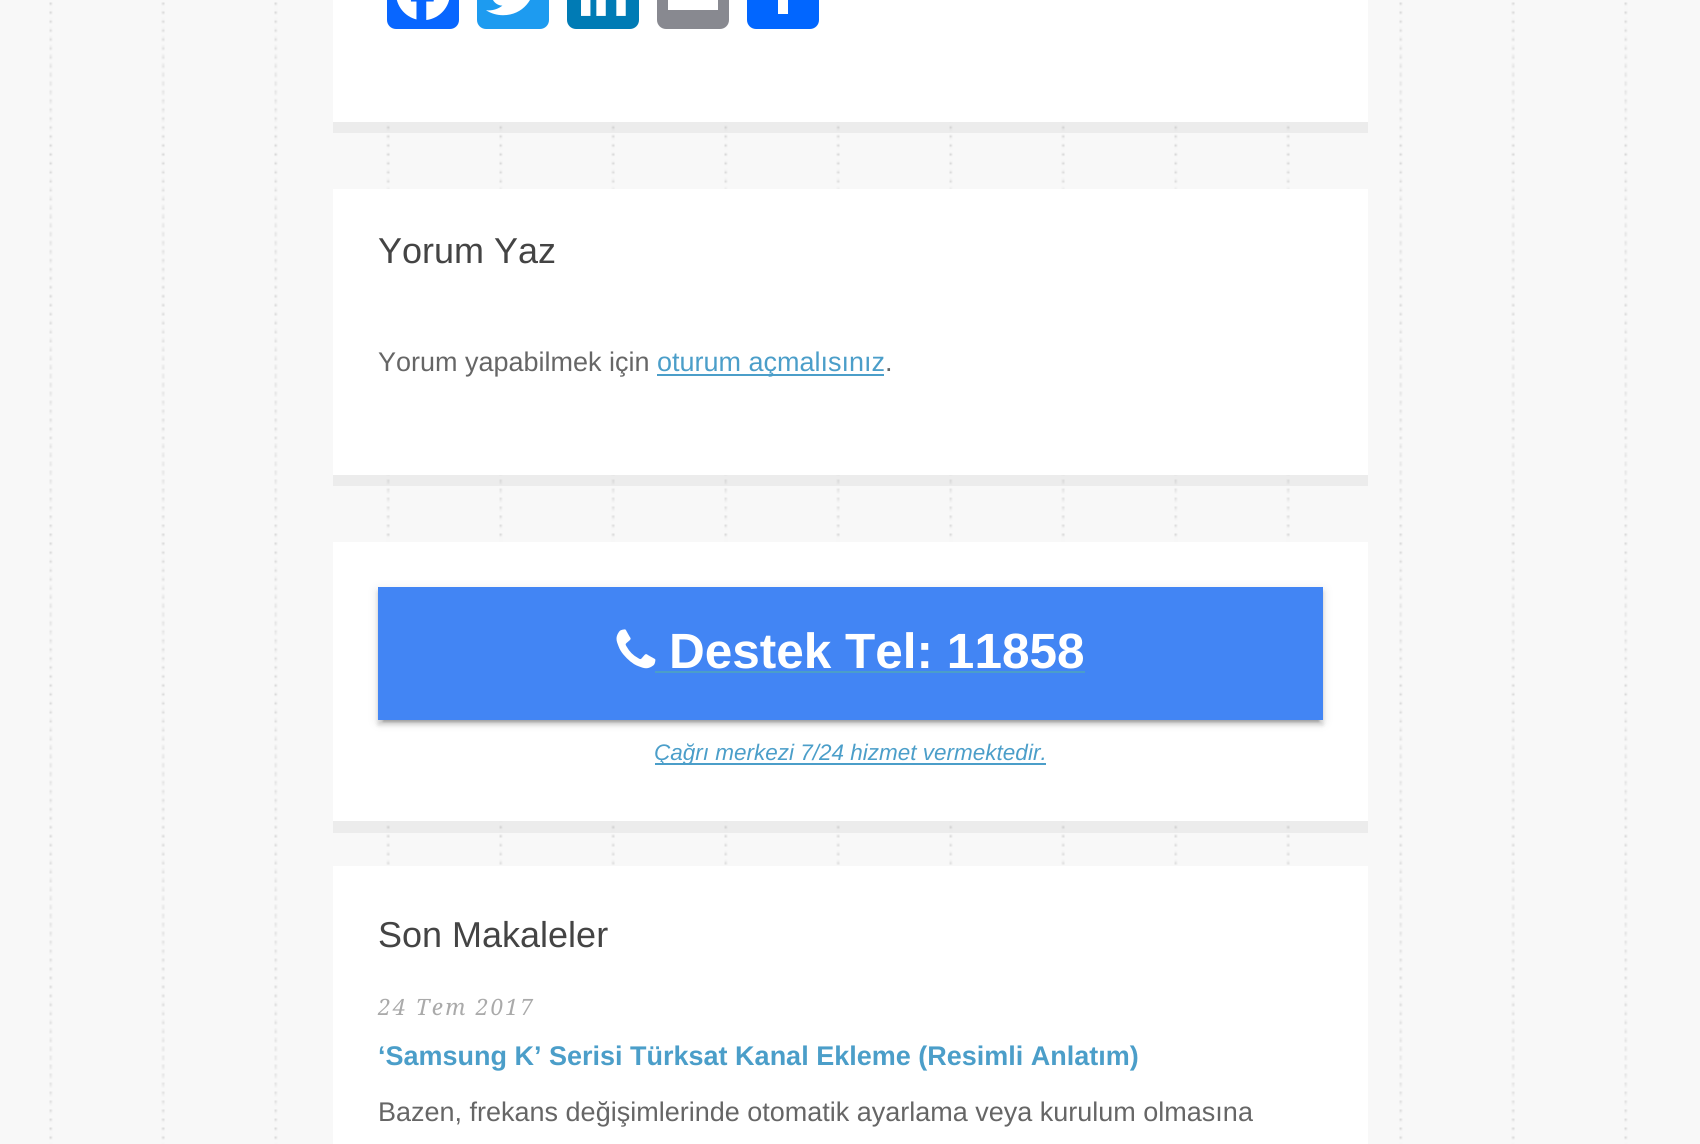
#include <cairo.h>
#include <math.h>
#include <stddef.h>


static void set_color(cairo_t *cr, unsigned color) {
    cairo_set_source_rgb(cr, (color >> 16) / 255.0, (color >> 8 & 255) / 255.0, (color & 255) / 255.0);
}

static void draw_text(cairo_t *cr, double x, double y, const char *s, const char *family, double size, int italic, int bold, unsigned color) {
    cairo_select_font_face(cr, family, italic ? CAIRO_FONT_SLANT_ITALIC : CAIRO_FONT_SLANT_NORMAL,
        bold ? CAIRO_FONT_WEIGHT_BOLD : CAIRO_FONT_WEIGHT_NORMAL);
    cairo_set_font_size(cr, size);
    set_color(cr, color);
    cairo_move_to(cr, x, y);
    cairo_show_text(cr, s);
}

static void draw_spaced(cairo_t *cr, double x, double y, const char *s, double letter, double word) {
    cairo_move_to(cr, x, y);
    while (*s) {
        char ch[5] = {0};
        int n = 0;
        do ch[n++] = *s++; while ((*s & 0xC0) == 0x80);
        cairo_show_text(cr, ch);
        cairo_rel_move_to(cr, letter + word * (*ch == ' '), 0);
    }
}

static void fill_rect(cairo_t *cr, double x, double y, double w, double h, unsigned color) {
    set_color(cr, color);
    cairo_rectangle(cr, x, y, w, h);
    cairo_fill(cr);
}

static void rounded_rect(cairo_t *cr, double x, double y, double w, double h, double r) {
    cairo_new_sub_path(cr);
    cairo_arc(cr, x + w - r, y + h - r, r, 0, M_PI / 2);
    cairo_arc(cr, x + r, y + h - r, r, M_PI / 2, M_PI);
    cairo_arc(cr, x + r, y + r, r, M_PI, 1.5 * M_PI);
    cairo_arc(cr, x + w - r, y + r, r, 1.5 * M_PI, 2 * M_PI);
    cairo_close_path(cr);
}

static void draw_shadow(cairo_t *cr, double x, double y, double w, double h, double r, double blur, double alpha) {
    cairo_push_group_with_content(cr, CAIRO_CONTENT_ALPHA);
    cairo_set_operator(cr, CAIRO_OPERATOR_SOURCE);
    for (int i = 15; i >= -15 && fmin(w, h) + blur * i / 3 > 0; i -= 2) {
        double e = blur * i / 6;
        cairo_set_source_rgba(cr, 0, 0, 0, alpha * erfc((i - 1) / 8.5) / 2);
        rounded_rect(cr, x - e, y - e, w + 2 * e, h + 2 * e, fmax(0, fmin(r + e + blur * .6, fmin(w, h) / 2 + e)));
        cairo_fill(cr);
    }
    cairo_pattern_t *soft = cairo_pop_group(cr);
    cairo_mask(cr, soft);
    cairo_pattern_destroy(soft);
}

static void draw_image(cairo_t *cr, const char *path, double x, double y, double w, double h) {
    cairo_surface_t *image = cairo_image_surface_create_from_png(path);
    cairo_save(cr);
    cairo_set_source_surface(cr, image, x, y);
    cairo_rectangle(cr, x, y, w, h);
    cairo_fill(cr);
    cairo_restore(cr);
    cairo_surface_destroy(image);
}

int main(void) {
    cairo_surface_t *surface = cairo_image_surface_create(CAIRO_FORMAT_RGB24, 1700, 1144);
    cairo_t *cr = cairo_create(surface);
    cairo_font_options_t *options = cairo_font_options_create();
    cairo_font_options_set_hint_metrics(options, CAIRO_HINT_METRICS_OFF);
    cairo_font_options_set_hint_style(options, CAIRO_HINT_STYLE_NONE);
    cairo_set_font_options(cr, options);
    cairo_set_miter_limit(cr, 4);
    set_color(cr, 0xFFFFFF);
    cairo_paint(cr);
    draw_image(cr, "assets/img1.png", 0, 0, 1700, 1144);
    cairo_set_source_rgba(cr, 0, 0, 0, 0.05);
    cairo_rectangle(cr, 333, 122, 1035, 11);
    cairo_fill(cr);
    fill_rect(cr, 333, 0, 1035, 122, 0xFFFFFF);
    set_color(cr, 0x0866FF);
    rounded_rect(cr, 387, -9, 72, 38, 9);
    cairo_fill(cr);
    draw_image(cr, "assets/img2.png", 396, 0, 54, 20);
    set_color(cr, 0x1D9BF0);
    rounded_rect(cr, 477, -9, 72, 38, 9);
    cairo_fill(cr);
    draw_image(cr, "assets/img3.png", 486, 0, 44, 16);
    set_color(cr, 0x007BB5);
    rounded_rect(cr, 567, -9, 72, 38, 9);
    cairo_fill(cr);
    draw_image(cr, "assets/img4.png", 581, 0, 45, 16);
    set_color(cr, 0x888990);
    rounded_rect(cr, 657, -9, 72, 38, 9);
    cairo_fill(cr);
    fill_rect(cr, 668, 0, 50, 10, 0xFFFFFF);
    set_color(cr, 0x0166FF);
    rounded_rect(cr, 747, -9, 72, 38, 9);
    cairo_fill(cr);
    fill_rect(cr, 778, 0, 10, 14, 0xFFFFFF);
    cairo_set_source_rgba(cr, 0, 0, 0, 0.05);
    cairo_rectangle(cr, 333, 475, 1035, 11);
    cairo_fill(cr);
    fill_rect(cr, 333, 189, 1035, 286, 0xFFFFFF);
    draw_text(cr, 378, 263, "Yorum Yaz", "Liberation Sans", 36, 0, 0, 0x444444);
    draw_text(cr, 378, 371, "Yorum yapabilmek için", "Liberation Sans", 27, 0, 0, 0x666666);
    fill_rect(cr, 657, 374, 227, 2, 0x4B9EC9);
    draw_text(cr, 657, 371, "oturum açmalısınız", "Liberation Sans", 27, 0, 0, 0x4B9EC9);
    draw_text(cr, 885, 371, ".", "Liberation Sans", 27, 0, 0, 0x666666);
    cairo_set_source_rgba(cr, 0, 0, 0, 0.05);
    cairo_rectangle(cr, 333, 821, 1035, 12);
    cairo_fill(cr);
    fill_rect(cr, 333, 542, 1035, 279, 0xFFFFFF);
    set_color(cr, 0x000000);
    draw_shadow(cr, 383, 599, 936, 123, 0, 1, 0.2);
    draw_shadow(cr, 378, 590, 945, 132, 0, 5.5, 0.12);
    draw_shadow(cr, 378, 592, 945, 133, 0, 2, 0.14);
    fill_rect(cr, 378, 587, 945, 133, 0x4285F4);
    draw_image(cr, "assets/img5.png", 616, 629, 40, 40);
    draw_text(cr, 669, 668, "Destek Tel: 11858", "Liberation Sans", 49.5, 0, 1, 0xFFFFFF);
    fill_rect(cr, 655, 671, 430, 2, 0x4B9EC9);
    fill_rect(cr, 655, 763, 391, 2, 0x4B9EC9);
    draw_text(cr, 654, 760, "Çağrı merkezi 7/24 hizmet vermektedir.", "Liberation Sans", 22.5, 1, 0, 0x4B9EC9);
    fill_rect(cr, 333, 866, 1035, 278, 0xFFFFFF);
    draw_text(cr, 378, 947, "Son Makaleler", "Liberation Sans", 36, 0, 0, 0x444444);
    cairo_select_font_face(cr, "Droid Serif", CAIRO_FONT_SLANT_ITALIC, CAIRO_FONT_WEIGHT_NORMAL);
    cairo_set_font_size(cr, 22.5);
    set_color(cr, 0xAAAAAA);
    draw_spaced(cr, 378, 1015, "24 Tem 2017", 2.25, 0);
    draw_text(cr, 378, 1065, "‘Samsung K’ Serisi Türksat Kanal Ekleme (Resimli Anlatım)", "Liberation Sans", 27, 0, 1, 0x4B9EC9);
    draw_text(cr, 378, 1121, "Bazen, frekans değişimlerinde otomatik ayarlama veya kurulum olmasına", "Liberation Sans", 27, 0, 0, 0x666666);
    cairo_surface_write_to_png(surface, "output.png");
    cairo_font_options_destroy(options);
    cairo_destroy(cr);
    cairo_surface_destroy(surface);
    return 0;
}
